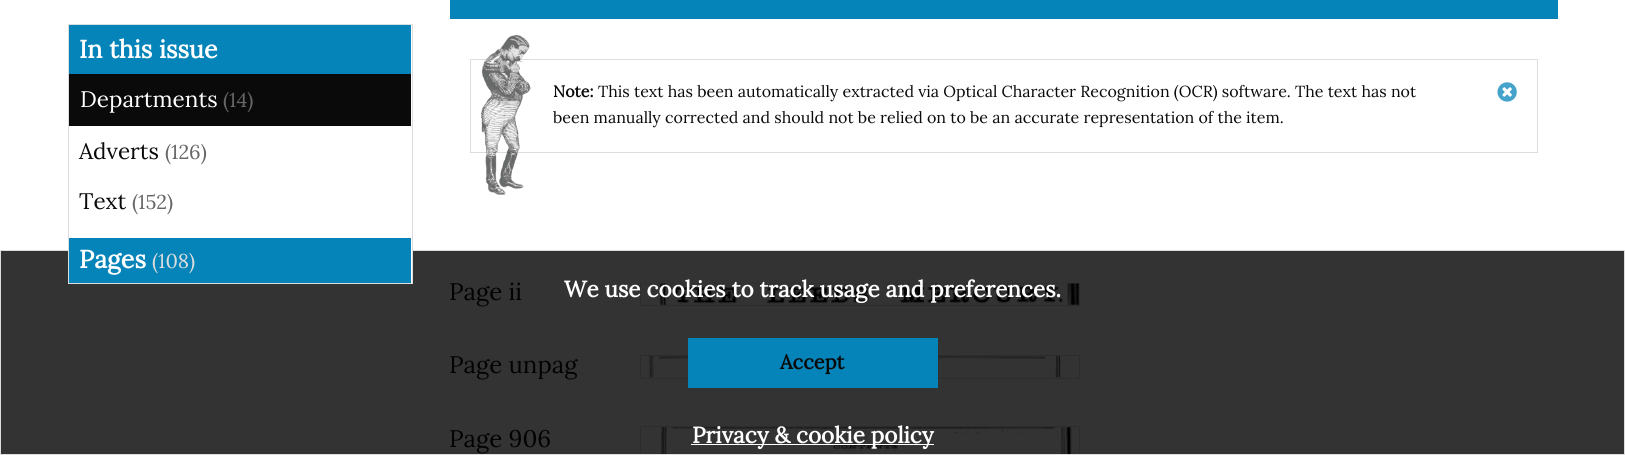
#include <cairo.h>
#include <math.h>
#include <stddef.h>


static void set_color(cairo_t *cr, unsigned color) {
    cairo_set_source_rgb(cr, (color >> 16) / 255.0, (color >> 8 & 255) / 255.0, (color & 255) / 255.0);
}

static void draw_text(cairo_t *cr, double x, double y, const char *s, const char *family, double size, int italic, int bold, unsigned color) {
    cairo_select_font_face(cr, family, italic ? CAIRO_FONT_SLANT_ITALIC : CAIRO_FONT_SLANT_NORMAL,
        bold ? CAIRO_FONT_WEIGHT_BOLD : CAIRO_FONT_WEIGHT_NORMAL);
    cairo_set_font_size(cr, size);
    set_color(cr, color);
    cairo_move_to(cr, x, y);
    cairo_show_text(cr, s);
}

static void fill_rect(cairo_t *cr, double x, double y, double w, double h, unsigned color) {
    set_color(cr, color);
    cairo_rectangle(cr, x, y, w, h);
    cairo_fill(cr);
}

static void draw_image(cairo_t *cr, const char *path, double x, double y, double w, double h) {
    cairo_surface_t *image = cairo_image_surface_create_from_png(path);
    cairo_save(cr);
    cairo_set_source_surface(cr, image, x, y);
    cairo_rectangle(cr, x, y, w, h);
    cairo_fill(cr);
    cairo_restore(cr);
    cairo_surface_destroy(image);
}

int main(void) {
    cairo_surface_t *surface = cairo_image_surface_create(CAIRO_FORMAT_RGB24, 1625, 455);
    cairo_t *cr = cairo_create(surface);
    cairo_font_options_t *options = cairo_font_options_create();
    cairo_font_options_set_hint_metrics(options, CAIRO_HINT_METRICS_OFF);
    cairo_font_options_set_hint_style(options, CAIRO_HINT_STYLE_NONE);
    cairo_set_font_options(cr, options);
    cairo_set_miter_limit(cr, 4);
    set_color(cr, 0xFFFFFF);
    cairo_paint(cr);
    fill_rect(cr, 1, 251, 1623, 203, 0x333333);
    cairo_rectangle(cr, 640.5, 283.5, 439, 22);
    set_color(cr, 0x2C2C2C);
    cairo_set_line_width(cr, 1);
    cairo_stroke(cr);
    draw_image(cr, "assets/img3.png", 641, 283, 438, 22);
    cairo_rectangle(cr, 640.5, 355.5, 439, 23);
    cairo_stroke(cr);
    draw_image(cr, "assets/img4.png", 648, 356, 413, 22);
    cairo_rectangle(cr, 640.5, 426.5, 439, 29);
    cairo_stroke(cr);
    draw_image(cr, "assets/img5.png", 661, 427, 411, 27);
    cairo_rectangle(cr, 0.5, 250.5, 1624, 204);
    set_color(cr, 0xDDDDDD);
    cairo_stroke(cr);
    fill_rect(cr, 69, 250, 343, 33, 0xFFFFFF);
    cairo_rectangle(cr, 68.5, 24.5, 344, 259);
    set_color(cr, 0xDDDDDD);
    cairo_stroke(cr);
    fill_rect(cr, 69, 25, 342, 49, 0x0584BA);
    draw_text(cr, 79, 58, "In this issue", "Lora", 25, 0, 1, 0xFFFFFF);
    fill_rect(cr, 69, 74, 342, 52, 0x0A0A0A);
    draw_text(cr, 80, 107, "Departments", "Lora", 22.5, 0, 0, 0xFFFFFF);
    draw_text(cr, 223, 107, "(14)", "Lora", 20, 0, 0, 0x666666);
    draw_text(cr, 79, 159, "Adverts", "Lora", 22.5, 0, 0, 0x0A0A0A);
    draw_text(cr, 165, 159, "(126)", "Lora", 20, 0, 0, 0x666666);
    draw_text(cr, 79, 209, "Text", "Lora", 22.5, 0, 0, 0x0A0A0A);
    draw_text(cr, 132, 209, "(152)", "Lora", 20, 0, 0, 0x666666);
    fill_rect(cr, 69, 238, 342, 45, 0x0584BA);
    draw_text(cr, 79, 268, "Pages", "Lora", 25, 0, 1, 0xFFFFFF);
    draw_text(cr, 152, 268, "(108)", "Lora", 20, 0, 0, 0xDDDDDD);
    fill_rect(cr, 450, 0, 1108, 19, 0x0584BA);
    cairo_rectangle(cr, 470.5, 59.5, 1067, 93);
    set_color(cr, 0xDDDDDD);
    cairo_stroke(cr);
    draw_image(cr, "assets/img1.png", 481, 34, 50, 161);
    draw_text(cr, 553, 97, "Note:", "Lora", 16, 0, 1, 0x0A0A0A);
    draw_text(cr, 598, 97, "This text has been automatically extracted via Optical Character Recognition (OCR) software. The text has not", "Lora", 16, 0, 0, 0x0A0A0A);
    draw_text(cr, 553, 123, "been manually corrected and should not be relied on to be an accurate representation of the item.", "Lora", 16, 0, 0, 0x0A0A0A);
    draw_image(cr, "assets/img2.png", 1497, 82, 20, 20);
    draw_text(cr, 449, 300, "Page ii", "Lora", 24, 0, 0, 0x020202);
    draw_text(cr, 449, 373, "Page unpag", "Lora", 24, 0, 0, 0x020202);
    draw_text(cr, 449, 447, "Page 906", "Lora", 24, 0, 0, 0x020202);
    draw_text(cr, 564, 297, "We use cookies to track usage and preferences.", "Lora", 22.5, 0, 1, 0xFFFFFF);
    fill_rect(cr, 688, 338, 250, 50, 0x0584BA);
    draw_text(cr, 780, 369, "Accept", "Lora", 20, 0, 1, 0x0A0A0A);
    fill_rect(cr, 691, 444, 243, 1, 0xFFFFFF);
    draw_text(cr, 692, 443, "Privacy & cookie policy", "Lora", 22.5, 0, 1, 0xFFFFFF);
    cairo_surface_write_to_png(surface, "output.png");
    cairo_font_options_destroy(options);
    cairo_destroy(cr);
    cairo_surface_destroy(surface);
    return 0;
}
